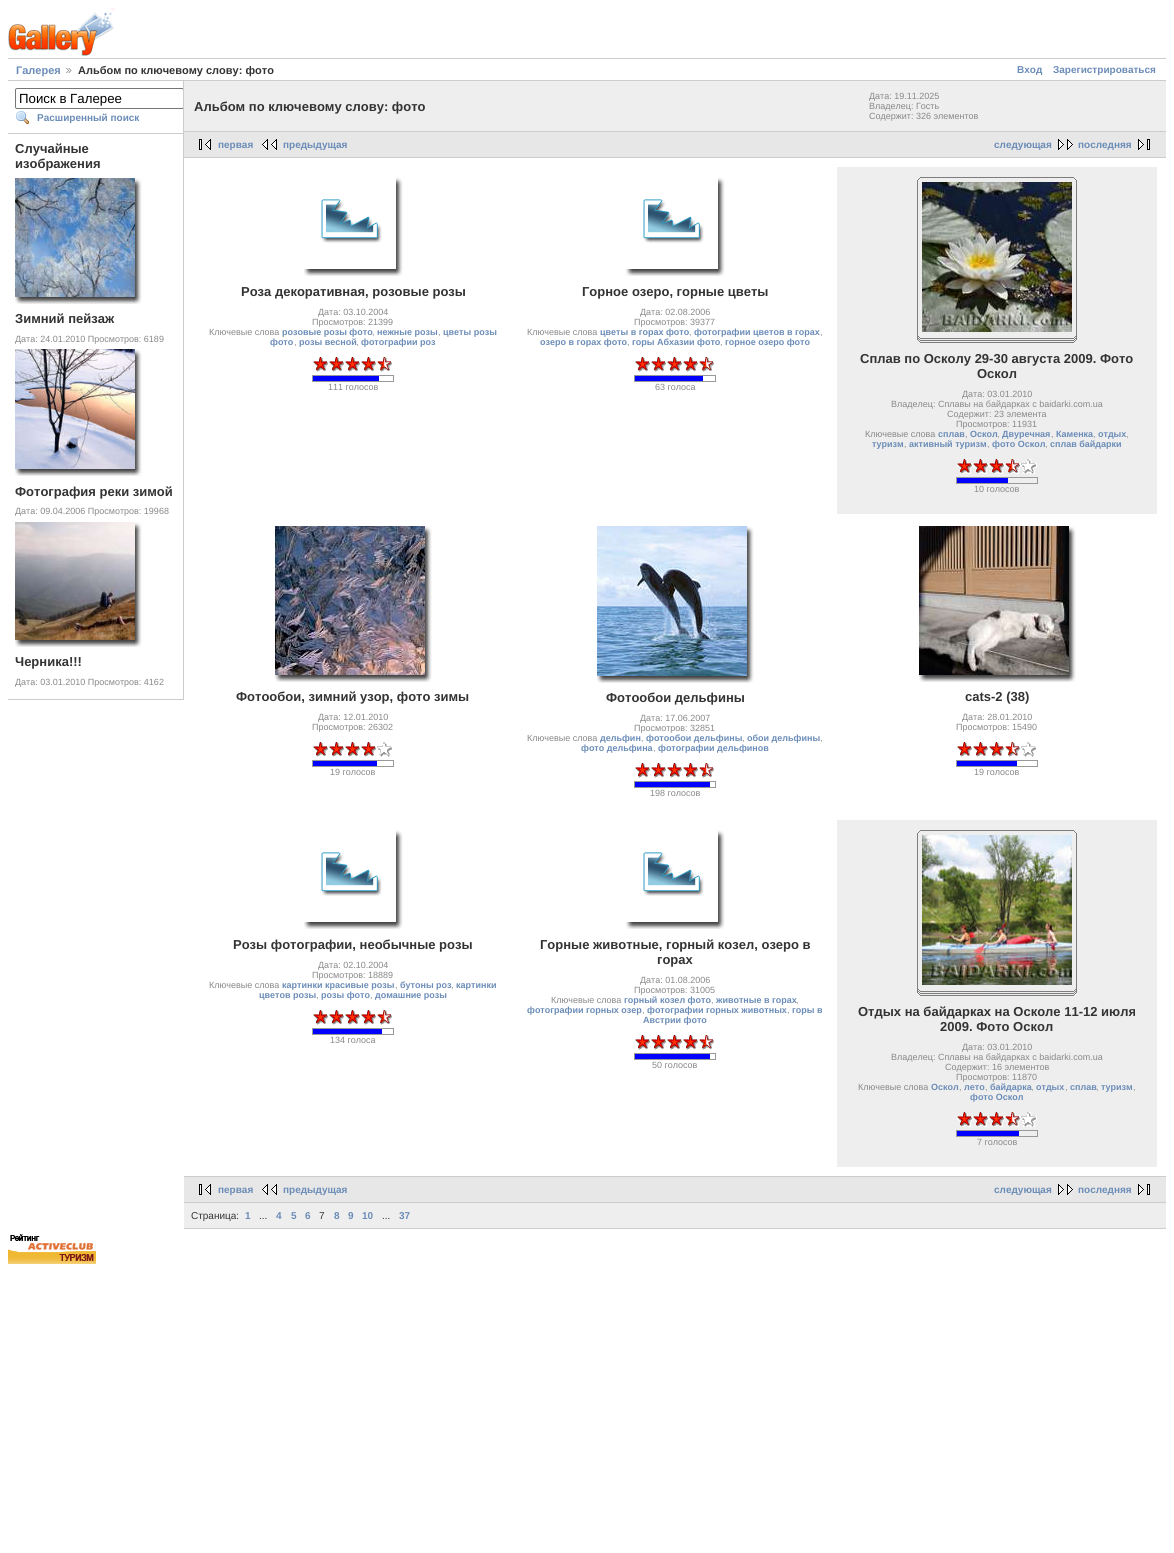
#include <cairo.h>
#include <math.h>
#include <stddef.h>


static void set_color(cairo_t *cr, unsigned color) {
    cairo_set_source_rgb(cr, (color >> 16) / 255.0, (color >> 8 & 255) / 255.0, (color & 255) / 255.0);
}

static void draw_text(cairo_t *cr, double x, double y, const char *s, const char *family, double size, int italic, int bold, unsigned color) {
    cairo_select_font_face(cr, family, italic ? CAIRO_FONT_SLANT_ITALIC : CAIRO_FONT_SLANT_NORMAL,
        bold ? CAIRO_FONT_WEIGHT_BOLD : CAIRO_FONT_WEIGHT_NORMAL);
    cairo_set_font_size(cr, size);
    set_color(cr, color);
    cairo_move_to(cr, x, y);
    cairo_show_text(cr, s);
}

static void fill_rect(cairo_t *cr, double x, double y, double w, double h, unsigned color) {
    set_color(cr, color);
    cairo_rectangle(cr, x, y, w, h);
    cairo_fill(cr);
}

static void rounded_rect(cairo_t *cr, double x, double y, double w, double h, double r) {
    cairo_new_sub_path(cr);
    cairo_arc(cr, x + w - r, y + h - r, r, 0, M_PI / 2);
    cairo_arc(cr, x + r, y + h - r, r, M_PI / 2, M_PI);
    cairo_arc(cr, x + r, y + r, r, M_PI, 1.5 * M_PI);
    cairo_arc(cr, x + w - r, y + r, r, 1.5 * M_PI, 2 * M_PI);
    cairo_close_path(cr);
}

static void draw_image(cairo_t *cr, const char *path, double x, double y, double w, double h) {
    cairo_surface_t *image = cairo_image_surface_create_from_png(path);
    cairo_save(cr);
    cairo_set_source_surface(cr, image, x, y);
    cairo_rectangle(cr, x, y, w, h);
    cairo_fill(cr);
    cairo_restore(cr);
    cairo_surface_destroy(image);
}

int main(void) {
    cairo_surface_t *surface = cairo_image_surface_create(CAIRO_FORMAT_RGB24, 1174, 1553);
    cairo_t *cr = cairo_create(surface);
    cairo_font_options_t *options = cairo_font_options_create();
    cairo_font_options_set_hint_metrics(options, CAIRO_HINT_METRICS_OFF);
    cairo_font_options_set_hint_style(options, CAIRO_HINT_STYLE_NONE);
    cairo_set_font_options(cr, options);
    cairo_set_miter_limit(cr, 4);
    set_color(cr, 0xFFFFFF);
    cairo_paint(cr);
    draw_image(cr, "assets/img1.png", 8, 8, 107, 48);
    fill_rect(cr, 8, 58, 1158, 1, 0xCCCCCC);
    fill_rect(cr, 8, 80, 1158, 1, 0xCCCCCC);
    draw_text(cr, 16, 74, "Галерея", "Liberation Sans", 11, 0, 1, 0x6B8CB7);
    draw_image(cr, "assets/img2.png", 66, 68, 6, 5);
    draw_text(cr, 78, 74, "Альбом по ключевому слову: фото", "Liberation Sans", 11, 0, 1, 0x333333);
    draw_text(cr, 1017, 73, "Вход", "Liberation Sans", 10, 0, 1, 0x6B8CB7);
    draw_text(cr, 1053, 73, "Зарегистрироваться", "Liberation Sans", 10, 0, 1, 0x6B8CB7);
    fill_rect(cr, 183, 81, 1, 619, 0xCCCCCC);
    fill_rect(cr, 8, 133, 175, 1, 0xCCCCCC);
    cairo_save(cr);
    cairo_rectangle(cr, 8, 81, 175, 619);
    cairo_clip(cr);
    rounded_rect(cr, 15.5, 88.5, 168, 20, 1.5);
    set_color(cr, 0x767676);
    cairo_set_line_width(cr, 1);
    cairo_stroke(cr);
    cairo_restore(cr);
    draw_text(cr, 19, 103, "Поиск в Галерее", "Liberation Sans", 13.25, 0, 0, 0x000000);
    draw_image(cr, "assets/img3.png", 16, 111, 13, 14);
    draw_text(cr, 37, 121, "Расширенный поиск", "Liberation Sans", 10, 0, 1, 0x6B8CB7);
    fill_rect(cr, 8, 699, 175, 1, 0xCCCCCC);
    draw_text(cr, 15, 153, "Случайные", "Liberation Sans", 13, 0, 1, 0x333333);
    draw_text(cr, 15, 168, "изображения", "Liberation Sans", 13, 0, 1, 0x333333);
    draw_image(cr, "assets/img4.png", 15, 178, 120, 119);
    draw_image(cr, "assets/img5.png", 135, 178, 7, 10);
    draw_image(cr, "assets/img6.png", 135, 188, 7, 109);
    draw_image(cr, "assets/img7.png", 15, 297, 9, 7);
    draw_image(cr, "assets/img8.png", 24, 297, 111, 7);
    draw_image(cr, "assets/img9.png", 135, 297, 7, 7);
    draw_text(cr, 15, 323, "Зимний пейзаж", "Liberation Sans", 13, 0, 1, 0x333333);
    draw_text(cr, 15, 342, "Дата: 24.01.2010 Просмотров: 6189", "Liberation Sans", 9, 0, 0, 0x888888);
    draw_image(cr, "assets/img10.png", 15, 349, 120, 120);
    draw_image(cr, "assets/img5.png", 135, 349, 7, 10);
    draw_image(cr, "assets/img11.png", 135, 359, 7, 110);
    draw_image(cr, "assets/img7.png", 15, 469, 9, 7);
    draw_image(cr, "assets/img8.png", 24, 469, 111, 7);
    draw_image(cr, "assets/img9.png", 135, 469, 7, 7);
    draw_text(cr, 15, 496, "Фотография реки зимой", "Liberation Sans", 13, 0, 1, 0x333333);
    draw_text(cr, 15, 514, "Дата: 09.04.2006 Просмотров: 19968", "Liberation Sans", 9, 0, 0, 0x888888);
    draw_image(cr, "assets/img12.png", 15, 522, 120, 118);
    draw_image(cr, "assets/img5.png", 135, 522, 7, 10);
    draw_image(cr, "assets/img13.png", 135, 532, 7, 108);
    draw_image(cr, "assets/img7.png", 15, 640, 9, 7);
    draw_image(cr, "assets/img8.png", 24, 640, 111, 7);
    draw_image(cr, "assets/img9.png", 135, 640, 7, 7);
    draw_text(cr, 15, 666, "Черника!!!", "Liberation Sans", 13, 0, 1, 0x333333);
    draw_text(cr, 15, 685, "Дата: 03.01.2010 Просмотров: 4162", "Liberation Sans", 9, 0, 0, 0x888888);
    fill_rect(cr, 184, 81, 982, 50, 0xEEEEEE);
    fill_rect(cr, 184, 131, 982, 1, 0xCCCCCC);
    draw_text(cr, 194, 111, "Альбом по ключевому слову: фото", "Liberation Sans", 13, 0, 1, 0x333333);
    draw_text(cr, 869, 99, "Дата: 19.11.2025", "Liberation Sans", 9, 0, 0, 0x888888);
    draw_text(cr, 869, 109, "Владелец: Гость", "Liberation Sans", 9, 0, 0, 0x888888);
    draw_text(cr, 869, 119, "Содержит: 326 элементов", "Liberation Sans", 9, 0, 0, 0x888888);
    fill_rect(cr, 184, 132, 982, 25, 0xE7E7E7);
    fill_rect(cr, 184, 157, 982, 1, 0xCCCCCC);
    draw_image(cr, "assets/img14.png", 199, 139, 12, 11);
    draw_text(cr, 218, 148, "первая", "Liberation Sans", 10, 0, 1, 0x6B8CB7);
    draw_image(cr, "assets/img15.png", 262, 139, 15, 11);
    draw_text(cr, 283, 148, "предыдущая", "Liberation Sans", 10, 0, 1, 0x6B8CB7);
    draw_text(cr, 994, 148, "следующая", "Liberation Sans", 10, 0, 1, 0x6B8CB7);
    draw_image(cr, "assets/img16.png", 1058, 139, 15, 11);
    draw_text(cr, 1078, 148, "последняя", "Liberation Sans", 10, 0, 1, 0x6B8CB7);
    draw_image(cr, "assets/img17.png", 1138, 139, 12, 11);
    fill_rect(cr, 184, 1176, 982, 1, 0xCCCCCC);
    draw_image(cr, "assets/img5.png", 396, 177, 7, 10);
    draw_image(cr, "assets/img18.png", 321, 199, 61, 44);
    draw_image(cr, "assets/img19.png", 396, 187, 7, 82);
    draw_image(cr, "assets/img7.png", 304, 269, 9, 7);
    draw_image(cr, "assets/img20.png", 313, 269, 83, 7);
    draw_image(cr, "assets/img9.png", 396, 269, 7, 7);
    draw_text(cr, 241, 296, "Роза декоративная, розовые розы", "Liberation Sans", 13, 0, 1, 0x333333);
    draw_text(cr, 318, 315, "Дата: 03.10.2004", "Liberation Sans", 9, 0, 0, 0x888888);
    draw_text(cr, 312, 325, "Просмотров: 21399", "Liberation Sans", 9, 0, 0, 0x888888);
    draw_text(cr, 209, 335, "Ключевые слова", "Liberation Sans", 9, 0, 0, 0x888888);
    draw_text(cr, 282, 335, "розовые розы фото", "Liberation Sans", 9, 0, 1, 0x6B8CB7);
    draw_text(cr, 372, 335, ",", "Liberation Sans", 9, 0, 0, 0x888888);
    draw_text(cr, 377, 335, "нежные розы", "Liberation Sans", 9, 0, 1, 0x6B8CB7);
    draw_text(cr, 438, 335, ",", "Liberation Sans", 9, 0, 0, 0x888888);
    draw_text(cr, 443, 335, "цветы розы", "Liberation Sans", 9, 0, 1, 0x6B8CB7);
    draw_text(cr, 270, 345, "фото", "Liberation Sans", 9, 0, 1, 0x6B8CB7);
    draw_text(cr, 294, 345, ",", "Liberation Sans", 9, 0, 0, 0x888888);
    draw_text(cr, 299, 345, "розы весной", "Liberation Sans", 9, 0, 1, 0x6B8CB7);
    draw_text(cr, 356, 345, ",", "Liberation Sans", 9, 0, 0, 0x888888);
    draw_text(cr, 361, 345, "фотографии роз", "Liberation Sans", 9, 0, 1, 0x6B8CB7);
    draw_image(cr, "assets/img21.png", 313, 357, 15, 15);
    draw_image(cr, "assets/img21.png", 329, 357, 15, 15);
    draw_image(cr, "assets/img21.png", 345, 357, 15, 15);
    draw_image(cr, "assets/img21.png", 361, 357, 15, 15);
    draw_image(cr, "assets/img22.png", 377, 357, 15, 15);
    cairo_rectangle(cr, 312.5, 375.5, 81, 6);
    set_color(cr, 0x999999);
    cairo_set_line_width(cr, 1);
    cairo_stroke(cr);
    fill_rect(cr, 313, 376, 66, 5, 0x0000FF);
    draw_text(cr, 328, 390, "111 голосов", "Liberation Sans", 9, 0, 0, 0x888888);
    draw_image(cr, "assets/img5.png", 718, 177, 7, 10);
    draw_image(cr, "assets/img18.png", 643, 199, 61, 44);
    draw_image(cr, "assets/img19.png", 718, 187, 7, 82);
    draw_image(cr, "assets/img7.png", 626, 269, 9, 7);
    draw_image(cr, "assets/img20.png", 635, 269, 83, 7);
    draw_image(cr, "assets/img9.png", 718, 269, 7, 7);
    draw_text(cr, 582, 296, "Горное озеро, горные цветы", "Liberation Sans", 13, 0, 1, 0x333333);
    draw_text(cr, 640, 315, "Дата: 02.08.2006", "Liberation Sans", 9, 0, 0, 0x888888);
    draw_text(cr, 634, 325, "Просмотров: 39377", "Liberation Sans", 9, 0, 0, 0x888888);
    draw_text(cr, 527, 335, "Ключевые слова", "Liberation Sans", 9, 0, 0, 0x888888);
    draw_text(cr, 600, 335, "цветы в горах фото", "Liberation Sans", 9, 0, 1, 0x6B8CB7);
    draw_text(cr, 689, 335, ",", "Liberation Sans", 9, 0, 0, 0x888888);
    draw_text(cr, 694, 335, "фотографии цветов в горах", "Liberation Sans", 9, 0, 1, 0x6B8CB7);
    draw_text(cr, 820, 335, ",", "Liberation Sans", 9, 0, 0, 0x888888);
    draw_text(cr, 540, 345, "озеро в горах фото", "Liberation Sans", 9, 0, 1, 0x6B8CB7);
    draw_text(cr, 627, 345, ",", "Liberation Sans", 9, 0, 0, 0x888888);
    draw_text(cr, 632, 345, "горы Абхазии фото", "Liberation Sans", 9, 0, 1, 0x6B8CB7);
    draw_text(cr, 720, 345, ",", "Liberation Sans", 9, 0, 0, 0x888888);
    draw_text(cr, 725, 345, "горное озеро фото", "Liberation Sans", 9, 0, 1, 0x6B8CB7);
    draw_image(cr, "assets/img21.png", 635, 357, 15, 15);
    draw_image(cr, "assets/img21.png", 651, 357, 15, 15);
    draw_image(cr, "assets/img21.png", 667, 357, 15, 15);
    draw_image(cr, "assets/img21.png", 683, 357, 15, 15);
    draw_image(cr, "assets/img22.png", 699, 357, 15, 15);
    cairo_rectangle(cr, 634.5, 375.5, 81, 6);
    set_color(cr, 0x999999);
    cairo_stroke(cr);
    fill_rect(cr, 635, 376, 68, 5, 0x0000FF);
    draw_text(cr, 655, 390, "63 голоса", "Liberation Sans", 9, 0, 0, 0x888888);
    fill_rect(cr, 837, 167, 320, 347, 0xEEEEEE);
    draw_image(cr, "assets/img23.png", 917, 177, 5, 5);
    fill_rect(cr, 922, 177, 150, 1, 0x7D7D7D);
    draw_image(cr, "assets/img24.png", 1072, 177, 5, 5);
    fill_rect(cr, 917, 182, 1, 150, 0x7D7D7D);
    draw_image(cr, "assets/img25.png", 922, 182, 150, 150);
    fill_rect(cr, 1076, 182, 1, 150, 0x7D7D7D);
    draw_image(cr, "assets/img26.png", 917, 332, 5, 11);
    draw_image(cr, "assets/img27.png", 922, 338, 150, 5);
    draw_image(cr, "assets/img28.png", 1072, 332, 5, 11);
    draw_text(cr, 860, 363, "Сплав по Осколу 29-30 августа 2009. Фото", "Liberation Sans", 13, 0, 1, 0x333333);
    draw_text(cr, 977, 378, "Оскол", "Liberation Sans", 13, 0, 1, 0x333333);
    draw_text(cr, 962, 397, "Дата: 03.01.2010", "Liberation Sans", 9, 0, 0, 0x888888);
    draw_text(cr, 891, 407, "Владелец: Сплавы на байдарках с baidarki.com.ua", "Liberation Sans", 9, 0, 0, 0x888888);
    draw_text(cr, 947, 417, "Содержит: 23 элемента", "Liberation Sans", 9, 0, 0, 0x888888);
    draw_text(cr, 956, 427, "Просмотров: 11931", "Liberation Sans", 9, 0, 0, 0x888888);
    draw_text(cr, 865, 437, "Ключевые слова", "Liberation Sans", 9, 0, 0, 0x888888);
    draw_text(cr, 938, 437, "сплав", "Liberation Sans", 9, 0, 1, 0x6B8CB7);
    draw_text(cr, 965, 437, ",", "Liberation Sans", 9, 0, 0, 0x888888);
    draw_text(cr, 970, 437, "Оскол", "Liberation Sans", 9, 0, 1, 0x6B8CB7);
    draw_text(cr, 997, 437, ",", "Liberation Sans", 9, 0, 0, 0x888888);
    draw_text(cr, 1002, 437, "Двуречная", "Liberation Sans", 9, 0, 1, 0x6B8CB7);
    draw_text(cr, 1051, 437, ",", "Liberation Sans", 9, 0, 0, 0x888888);
    draw_text(cr, 1056, 437, "Каменка", "Liberation Sans", 9, 0, 1, 0x6B8CB7);
    draw_text(cr, 1093, 437, ",", "Liberation Sans", 9, 0, 0, 0x888888);
    draw_text(cr, 1098, 437, "отдых", "Liberation Sans", 9, 0, 1, 0x6B8CB7);
    draw_text(cr, 1126, 437, ",", "Liberation Sans", 9, 0, 0, 0x888888);
    draw_text(cr, 872, 447, "туризм", "Liberation Sans", 9, 0, 1, 0x6B8CB7);
    draw_text(cr, 904, 447, ",", "Liberation Sans", 9, 0, 0, 0x888888);
    draw_text(cr, 909, 447, "активный туризм", "Liberation Sans", 9, 0, 1, 0x6B8CB7);
    draw_text(cr, 987, 447, ",", "Liberation Sans", 9, 0, 0, 0x888888);
    draw_text(cr, 992, 447, "фото Оскол", "Liberation Sans", 9, 0, 1, 0x6B8CB7);
    draw_text(cr, 1045, 447, ",", "Liberation Sans", 9, 0, 0, 0x888888);
    draw_text(cr, 1050, 447, "сплав байдарки", "Liberation Sans", 9, 0, 1, 0x6B8CB7);
    draw_image(cr, "assets/img29.png", 957, 459, 16, 15);
    draw_image(cr, "assets/img29.png", 973, 459, 16, 15);
    draw_image(cr, "assets/img29.png", 989, 459, 16, 15);
    draw_image(cr, "assets/img30.png", 1005, 459, 16, 15);
    draw_image(cr, "assets/img31.png", 1021, 459, 16, 15);
    cairo_rectangle(cr, 956.5, 477.5, 81, 6);
    set_color(cr, 0x999999);
    cairo_stroke(cr);
    fill_rect(cr, 957, 478, 51, 5, 0x0000FF);
    draw_text(cr, 974, 492, "10 голосов", "Liberation Sans", 9, 0, 0, 0x888888);
    draw_image(cr, "assets/img32.png", 275, 526, 150, 149);
    draw_image(cr, "assets/img5.png", 425, 526, 7, 10);
    draw_image(cr, "assets/img33.png", 425, 536, 7, 139);
    draw_image(cr, "assets/img7.png", 275, 675, 9, 7);
    draw_image(cr, "assets/img34.png", 284, 675, 141, 7);
    draw_image(cr, "assets/img9.png", 425, 675, 7, 7);
    draw_text(cr, 236, 701, "Фотообои, зимний узор, фото зимы", "Liberation Sans", 13, 0, 1, 0x333333);
    draw_text(cr, 318, 720, "Дата: 12.01.2010", "Liberation Sans", 9, 0, 0, 0x888888);
    draw_text(cr, 312, 730, "Просмотров: 26302", "Liberation Sans", 9, 0, 0, 0x888888);
    draw_image(cr, "assets/img21.png", 313, 742, 15, 15);
    draw_image(cr, "assets/img21.png", 329, 742, 15, 15);
    draw_image(cr, "assets/img21.png", 345, 742, 15, 15);
    draw_image(cr, "assets/img21.png", 361, 742, 15, 15);
    draw_image(cr, "assets/img35.png", 377, 742, 15, 15);
    cairo_rectangle(cr, 312.5, 760.5, 81, 6);
    set_color(cr, 0x999999);
    cairo_stroke(cr);
    fill_rect(cr, 313, 761, 64, 5, 0x0000FF);
    draw_text(cr, 330, 775, "19 голосов", "Liberation Sans", 9, 0, 0, 0x888888);
    draw_image(cr, "assets/img36.png", 597, 526, 150, 150);
    draw_image(cr, "assets/img5.png", 747, 526, 7, 10);
    draw_image(cr, "assets/img37.png", 747, 536, 7, 140);
    draw_image(cr, "assets/img7.png", 597, 676, 9, 7);
    draw_image(cr, "assets/img34.png", 606, 676, 141, 7);
    draw_image(cr, "assets/img9.png", 747, 676, 7, 7);
    draw_text(cr, 606, 702, "Фотообои дельфины", "Liberation Sans", 13, 0, 1, 0x333333);
    draw_text(cr, 640, 721, "Дата: 17.06.2007", "Liberation Sans", 9, 0, 0, 0x888888);
    draw_text(cr, 634, 731, "Просмотров: 32851", "Liberation Sans", 9, 0, 0, 0x888888);
    draw_text(cr, 527, 741, "Ключевые слова", "Liberation Sans", 9, 0, 0, 0x888888);
    draw_text(cr, 600, 741, "дельфин", "Liberation Sans", 9, 0, 1, 0x6B8CB7);
    draw_text(cr, 641, 741, ",", "Liberation Sans", 9, 0, 0, 0x888888);
    draw_text(cr, 646, 741, "фотообои дельфины", "Liberation Sans", 9, 0, 1, 0x6B8CB7);
    draw_text(cr, 742, 741, ",", "Liberation Sans", 9, 0, 0, 0x888888);
    draw_text(cr, 747, 741, "обои дельфины", "Liberation Sans", 9, 0, 1, 0x6B8CB7);
    draw_text(cr, 820, 741, ",", "Liberation Sans", 9, 0, 0, 0x888888);
    draw_text(cr, 581, 751, "фото дельфина", "Liberation Sans", 9, 0, 1, 0x6B8CB7);
    draw_text(cr, 653, 751, ",", "Liberation Sans", 9, 0, 0, 0x888888);
    draw_text(cr, 658, 751, "фотографии дельфинов", "Liberation Sans", 9, 0, 1, 0x6B8CB7);
    draw_image(cr, "assets/img21.png", 635, 763, 15, 15);
    draw_image(cr, "assets/img21.png", 651, 763, 15, 15);
    draw_image(cr, "assets/img21.png", 667, 763, 15, 15);
    draw_image(cr, "assets/img21.png", 683, 763, 15, 15);
    draw_image(cr, "assets/img22.png", 699, 763, 15, 15);
    cairo_rectangle(cr, 634.5, 781.5, 81, 6);
    set_color(cr, 0x999999);
    cairo_stroke(cr);
    fill_rect(cr, 635, 782, 75, 5, 0x0000FF);
    draw_text(cr, 650, 796, "198 голосов", "Liberation Sans", 9, 0, 0, 0x888888);
    draw_image(cr, "assets/img38.png", 919, 526, 150, 149);
    draw_image(cr, "assets/img5.png", 1069, 526, 7, 10);
    draw_image(cr, "assets/img33.png", 1069, 536, 7, 139);
    draw_image(cr, "assets/img7.png", 919, 675, 9, 7);
    draw_image(cr, "assets/img34.png", 928, 675, 141, 7);
    draw_image(cr, "assets/img9.png", 1069, 675, 7, 7);
    draw_text(cr, 965, 701, "cats-2 (38)", "Liberation Sans", 13, 0, 1, 0x333333);
    draw_text(cr, 962, 720, "Дата: 28.01.2010", "Liberation Sans", 9, 0, 0, 0x888888);
    draw_text(cr, 956, 730, "Просмотров: 15490", "Liberation Sans", 9, 0, 0, 0x888888);
    draw_image(cr, "assets/img21.png", 957, 742, 15, 15);
    draw_image(cr, "assets/img21.png", 973, 742, 15, 15);
    draw_image(cr, "assets/img21.png", 989, 742, 15, 15);
    draw_image(cr, "assets/img22.png", 1005, 742, 15, 15);
    draw_image(cr, "assets/img35.png", 1021, 742, 15, 15);
    cairo_rectangle(cr, 956.5, 760.5, 81, 6);
    set_color(cr, 0x999999);
    cairo_stroke(cr);
    fill_rect(cr, 957, 761, 60, 5, 0x0000FF);
    draw_text(cr, 974, 775, "19 голосов", "Liberation Sans", 9, 0, 0, 0x888888);
    draw_image(cr, "assets/img5.png", 396, 830, 7, 10);
    draw_image(cr, "assets/img18.png", 321, 852, 61, 44);
    draw_image(cr, "assets/img19.png", 396, 840, 7, 82);
    draw_image(cr, "assets/img7.png", 304, 922, 9, 7);
    draw_image(cr, "assets/img20.png", 313, 922, 83, 7);
    draw_image(cr, "assets/img9.png", 396, 922, 7, 7);
    draw_text(cr, 233, 949, "Розы фотографии, необычные розы", "Liberation Sans", 13, 0, 1, 0x333333);
    draw_text(cr, 318, 968, "Дата: 02.10.2004", "Liberation Sans", 9, 0, 0, 0x888888);
    draw_text(cr, 312, 978, "Просмотров: 18889", "Liberation Sans", 9, 0, 0, 0x888888);
    draw_text(cr, 209, 988, "Ключевые слова", "Liberation Sans", 9, 0, 0, 0x888888);
    draw_text(cr, 282, 988, "картинки красивые розы", "Liberation Sans", 9, 0, 1, 0x6B8CB7);
    draw_text(cr, 395, 988, ",", "Liberation Sans", 9, 0, 0, 0x888888);
    draw_text(cr, 400, 988, "бутоны роз", "Liberation Sans", 9, 0, 1, 0x6B8CB7);
    draw_text(cr, 451, 988, ",", "Liberation Sans", 9, 0, 0, 0x888888);
    draw_text(cr, 456, 988, "картинки", "Liberation Sans", 9, 0, 1, 0x6B8CB7);
    draw_text(cr, 259, 998, "цветов розы", "Liberation Sans", 9, 0, 1, 0x6B8CB7);
    draw_text(cr, 316, 998, ",", "Liberation Sans", 9, 0, 0, 0x888888);
    draw_text(cr, 321, 998, "розы фото", "Liberation Sans", 9, 0, 1, 0x6B8CB7);
    draw_text(cr, 370, 998, ",", "Liberation Sans", 9, 0, 0, 0x888888);
    draw_text(cr, 375, 998, "домашние розы", "Liberation Sans", 9, 0, 1, 0x6B8CB7);
    draw_image(cr, "assets/img21.png", 313, 1010, 15, 15);
    draw_image(cr, "assets/img21.png", 329, 1010, 15, 15);
    draw_image(cr, "assets/img21.png", 345, 1010, 15, 15);
    draw_image(cr, "assets/img21.png", 361, 1010, 15, 15);
    draw_image(cr, "assets/img22.png", 377, 1010, 15, 15);
    cairo_rectangle(cr, 312.5, 1028.5, 81, 6);
    set_color(cr, 0x999999);
    cairo_stroke(cr);
    fill_rect(cr, 313, 1029, 69, 5, 0x0000FF);
    draw_text(cr, 330, 1043, "134 голоса", "Liberation Sans", 9, 0, 0, 0x888888);
    draw_image(cr, "assets/img5.png", 718, 830, 7, 10);
    draw_image(cr, "assets/img18.png", 643, 852, 61, 44);
    draw_image(cr, "assets/img19.png", 718, 840, 7, 82);
    draw_image(cr, "assets/img7.png", 626, 922, 9, 7);
    draw_image(cr, "assets/img20.png", 635, 922, 83, 7);
    draw_image(cr, "assets/img9.png", 718, 922, 7, 7);
    draw_text(cr, 540, 949, "Горные животные, горный козел, озеро в", "Liberation Sans", 13, 0, 1, 0x333333);
    draw_text(cr, 657, 964, "горах", "Liberation Sans", 13, 0, 1, 0x333333);
    draw_text(cr, 640, 983, "Дата: 01.08.2006", "Liberation Sans", 9, 0, 0, 0x888888);
    draw_text(cr, 634, 993, "Просмотров: 31005", "Liberation Sans", 9, 0, 0, 0x888888);
    draw_text(cr, 551, 1003, "Ключевые слова", "Liberation Sans", 9, 0, 0, 0x888888);
    draw_text(cr, 624, 1003, "горный козел фото", "Liberation Sans", 9, 0, 1, 0x6B8CB7);
    draw_text(cr, 711, 1003, ",", "Liberation Sans", 9, 0, 0, 0x888888);
    draw_text(cr, 716, 1003, "животные в горах", "Liberation Sans", 9, 0, 1, 0x6B8CB7);
    draw_text(cr, 796, 1003, ",", "Liberation Sans", 9, 0, 0, 0x888888);
    draw_text(cr, 527, 1013, "фотографии горных озер", "Liberation Sans", 9, 0, 1, 0x6B8CB7);
    draw_text(cr, 642, 1013, ",", "Liberation Sans", 9, 0, 0, 0x888888);
    draw_text(cr, 647, 1013, "фотографии горных животных", "Liberation Sans", 9, 0, 1, 0x6B8CB7);
    draw_text(cr, 787, 1013, ",", "Liberation Sans", 9, 0, 0, 0x888888);
    draw_text(cr, 792, 1013, "горы в", "Liberation Sans", 9, 0, 1, 0x6B8CB7);
    draw_text(cr, 643, 1023, "Австрии фото", "Liberation Sans", 9, 0, 1, 0x6B8CB7);
    draw_image(cr, "assets/img21.png", 635, 1035, 15, 15);
    draw_image(cr, "assets/img21.png", 651, 1035, 15, 15);
    draw_image(cr, "assets/img21.png", 667, 1035, 15, 15);
    draw_image(cr, "assets/img21.png", 683, 1035, 15, 15);
    draw_image(cr, "assets/img22.png", 699, 1035, 15, 15);
    cairo_rectangle(cr, 634.5, 1053.5, 81, 6);
    set_color(cr, 0x999999);
    cairo_stroke(cr);
    fill_rect(cr, 635, 1054, 75, 5, 0x0000FF);
    draw_text(cr, 652, 1068, "50 голосов", "Liberation Sans", 9, 0, 0, 0x888888);
    fill_rect(cr, 837, 820, 320, 347, 0xEEEEEE);
    draw_image(cr, "assets/img23.png", 917, 830, 5, 5);
    fill_rect(cr, 922, 830, 150, 1, 0x7D7D7D);
    draw_image(cr, "assets/img24.png", 1072, 830, 5, 5);
    fill_rect(cr, 917, 835, 1, 150, 0x7D7D7D);
    draw_image(cr, "assets/img39.png", 922, 835, 150, 150);
    fill_rect(cr, 1076, 835, 1, 150, 0x7D7D7D);
    draw_image(cr, "assets/img26.png", 917, 985, 5, 11);
    draw_image(cr, "assets/img27.png", 922, 991, 150, 5);
    draw_image(cr, "assets/img28.png", 1072, 985, 5, 11);
    draw_text(cr, 858, 1016, "Отдых на байдарках на Осколе 11-12 июля", "Liberation Sans", 13, 0, 1, 0x333333);
    draw_text(cr, 940, 1031, "2009. Фото Оскол", "Liberation Sans", 13, 0, 1, 0x333333);
    draw_text(cr, 962, 1050, "Дата: 03.01.2010", "Liberation Sans", 9, 0, 0, 0x888888);
    draw_text(cr, 891, 1060, "Владелец: Сплавы на байдарках с baidarki.com.ua", "Liberation Sans", 9, 0, 0, 0x888888);
    draw_text(cr, 945, 1070, "Содержит: 16 элементов", "Liberation Sans", 9, 0, 0, 0x888888);
    draw_text(cr, 956, 1080, "Просмотров: 11870", "Liberation Sans", 9, 0, 0, 0x888888);
    draw_text(cr, 858, 1090, "Ключевые слова", "Liberation Sans", 9, 0, 0, 0x888888);
    draw_text(cr, 931, 1090, "Оскол", "Liberation Sans", 9, 0, 1, 0x6B8CB7);
    draw_text(cr, 959, 1090, ",", "Liberation Sans", 9, 0, 0, 0x888888);
    draw_text(cr, 964, 1090, "лето", "Liberation Sans", 9, 0, 1, 0x6B8CB7);
    draw_text(cr, 985, 1090, ",", "Liberation Sans", 9, 0, 0, 0x888888);
    draw_text(cr, 990, 1090, "байдарка", "Liberation Sans", 9, 0, 1, 0x6B8CB7);
    draw_text(cr, 1031, 1090, ",", "Liberation Sans", 9, 0, 0, 0x888888);
    draw_text(cr, 1036, 1090, "отдых", "Liberation Sans", 9, 0, 1, 0x6B8CB7);
    draw_text(cr, 1065, 1090, ",", "Liberation Sans", 9, 0, 0, 0x888888);
    draw_text(cr, 1070, 1090, "сплав", "Liberation Sans", 9, 0, 1, 0x6B8CB7);
    draw_text(cr, 1096, 1090, ",", "Liberation Sans", 9, 0, 0, 0x888888);
    draw_text(cr, 1101, 1090, "туризм", "Liberation Sans", 9, 0, 1, 0x6B8CB7);
    draw_text(cr, 1133, 1090, ",", "Liberation Sans", 9, 0, 0, 0x888888);
    draw_text(cr, 970, 1100, "фото Оскол", "Liberation Sans", 9, 0, 1, 0x6B8CB7);
    draw_image(cr, "assets/img29.png", 957, 1112, 16, 15);
    draw_image(cr, "assets/img29.png", 973, 1112, 16, 15);
    draw_image(cr, "assets/img29.png", 989, 1112, 16, 15);
    draw_image(cr, "assets/img30.png", 1005, 1112, 16, 15);
    draw_image(cr, "assets/img31.png", 1021, 1112, 16, 15);
    cairo_rectangle(cr, 956.5, 1130.5, 81, 6);
    set_color(cr, 0x999999);
    cairo_stroke(cr);
    fill_rect(cr, 957, 1131, 62, 5, 0x0000FF);
    draw_text(cr, 977, 1145, "7 голосов", "Liberation Sans", 9, 0, 0, 0x888888);
    fill_rect(cr, 184, 1177, 982, 25, 0xE7E7E7);
    fill_rect(cr, 184, 1202, 982, 1, 0xCCCCCC);
    draw_image(cr, "assets/img14.png", 199, 1184, 12, 11);
    draw_text(cr, 218, 1193, "первая", "Liberation Sans", 10, 0, 1, 0x6B8CB7);
    draw_image(cr, "assets/img15.png", 262, 1184, 15, 11);
    draw_text(cr, 283, 1193, "предыдущая", "Liberation Sans", 10, 0, 1, 0x6B8CB7);
    draw_text(cr, 994, 1193, "следующая", "Liberation Sans", 10, 0, 1, 0x6B8CB7);
    draw_image(cr, "assets/img16.png", 1058, 1184, 15, 11);
    draw_text(cr, 1078, 1193, "последняя", "Liberation Sans", 10, 0, 1, 0x6B8CB7);
    draw_image(cr, "assets/img17.png", 1138, 1184, 12, 11);
    fill_rect(cr, 184, 1203, 982, 25, 0xEEEEEE);
    fill_rect(cr, 184, 1228, 982, 1, 0xCCCCCC);
    draw_text(cr, 191, 1219, "Страница:", "Liberation Sans", 10, 0, 0, 0x333333);
    draw_text(cr, 245, 1219, "1", "Liberation Sans", 10, 0, 1, 0x6B8CB7);
    draw_text(cr, 259, 1219, "...", "Liberation Sans", 10, 0, 0, 0x333333);
    draw_text(cr, 276, 1219, "4", "Liberation Sans", 10, 0, 1, 0x6B8CB7);
    draw_text(cr, 291, 1219, "5", "Liberation Sans", 10, 0, 1, 0x6B8CB7);
    draw_text(cr, 305, 1219, "6", "Liberation Sans", 10, 0, 1, 0x6B8CB7);
    draw_text(cr, 319, 1219, "7", "Liberation Sans", 10, 0, 0, 0x333333);
    draw_text(cr, 334, 1219, "8", "Liberation Sans", 10, 0, 1, 0x6B8CB7);
    draw_text(cr, 348, 1219, "9", "Liberation Sans", 10, 0, 1, 0x6B8CB7);
    draw_text(cr, 362, 1219, "10", "Liberation Sans", 10, 0, 1, 0x6B8CB7);
    draw_text(cr, 382, 1219, "...", "Liberation Sans", 10, 0, 0, 0x333333);
    draw_text(cr, 399, 1219, "37", "Liberation Sans", 10, 0, 1, 0x6B8CB7);
    draw_image(cr, "assets/img40.png", 8, 1234, 88, 30);
    cairo_surface_write_to_png(surface, "output.png");
    cairo_font_options_destroy(options);
    cairo_destroy(cr);
    cairo_surface_destroy(surface);
    return 0;
}
